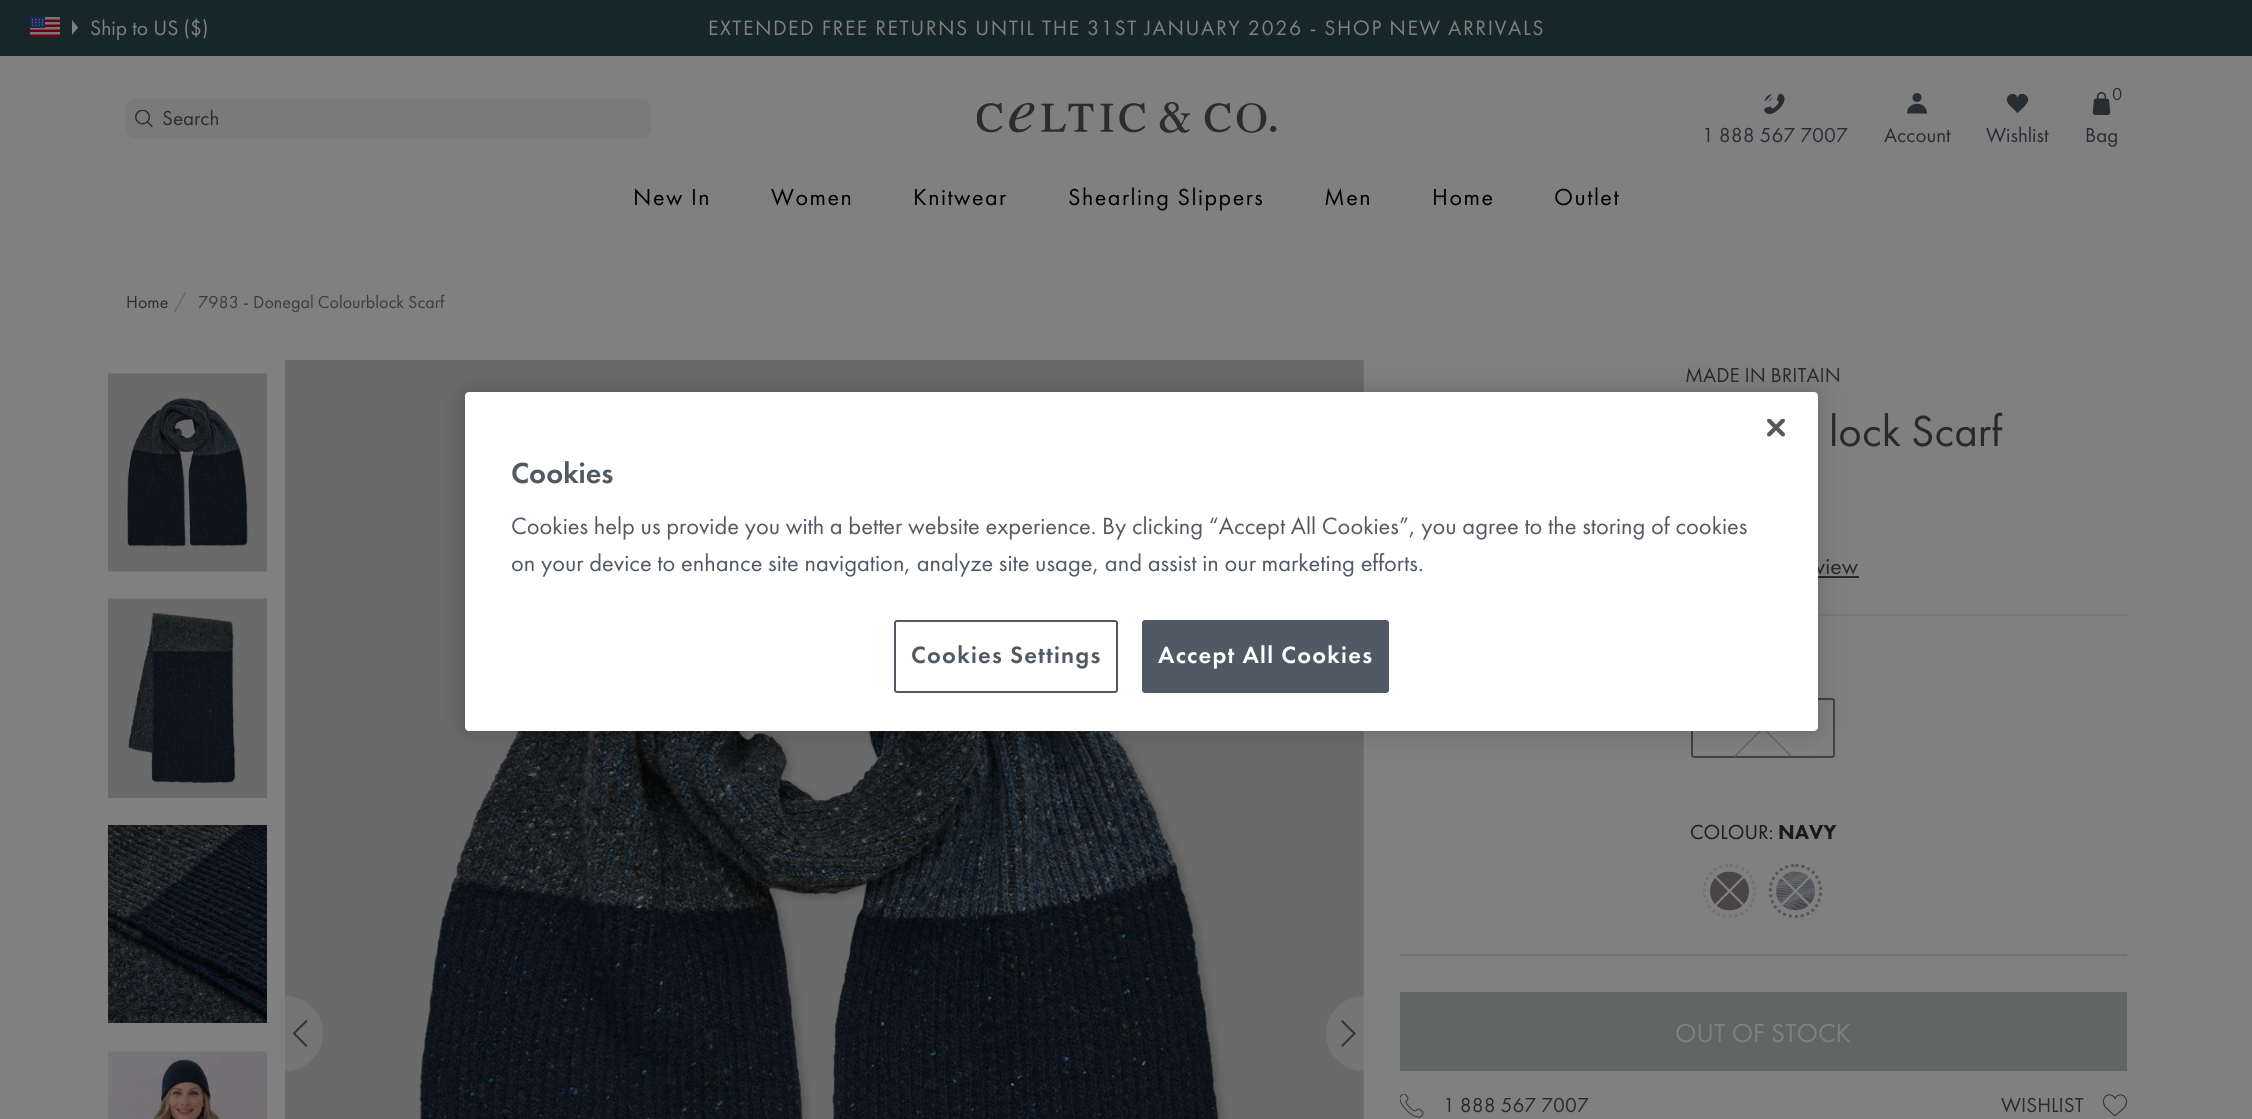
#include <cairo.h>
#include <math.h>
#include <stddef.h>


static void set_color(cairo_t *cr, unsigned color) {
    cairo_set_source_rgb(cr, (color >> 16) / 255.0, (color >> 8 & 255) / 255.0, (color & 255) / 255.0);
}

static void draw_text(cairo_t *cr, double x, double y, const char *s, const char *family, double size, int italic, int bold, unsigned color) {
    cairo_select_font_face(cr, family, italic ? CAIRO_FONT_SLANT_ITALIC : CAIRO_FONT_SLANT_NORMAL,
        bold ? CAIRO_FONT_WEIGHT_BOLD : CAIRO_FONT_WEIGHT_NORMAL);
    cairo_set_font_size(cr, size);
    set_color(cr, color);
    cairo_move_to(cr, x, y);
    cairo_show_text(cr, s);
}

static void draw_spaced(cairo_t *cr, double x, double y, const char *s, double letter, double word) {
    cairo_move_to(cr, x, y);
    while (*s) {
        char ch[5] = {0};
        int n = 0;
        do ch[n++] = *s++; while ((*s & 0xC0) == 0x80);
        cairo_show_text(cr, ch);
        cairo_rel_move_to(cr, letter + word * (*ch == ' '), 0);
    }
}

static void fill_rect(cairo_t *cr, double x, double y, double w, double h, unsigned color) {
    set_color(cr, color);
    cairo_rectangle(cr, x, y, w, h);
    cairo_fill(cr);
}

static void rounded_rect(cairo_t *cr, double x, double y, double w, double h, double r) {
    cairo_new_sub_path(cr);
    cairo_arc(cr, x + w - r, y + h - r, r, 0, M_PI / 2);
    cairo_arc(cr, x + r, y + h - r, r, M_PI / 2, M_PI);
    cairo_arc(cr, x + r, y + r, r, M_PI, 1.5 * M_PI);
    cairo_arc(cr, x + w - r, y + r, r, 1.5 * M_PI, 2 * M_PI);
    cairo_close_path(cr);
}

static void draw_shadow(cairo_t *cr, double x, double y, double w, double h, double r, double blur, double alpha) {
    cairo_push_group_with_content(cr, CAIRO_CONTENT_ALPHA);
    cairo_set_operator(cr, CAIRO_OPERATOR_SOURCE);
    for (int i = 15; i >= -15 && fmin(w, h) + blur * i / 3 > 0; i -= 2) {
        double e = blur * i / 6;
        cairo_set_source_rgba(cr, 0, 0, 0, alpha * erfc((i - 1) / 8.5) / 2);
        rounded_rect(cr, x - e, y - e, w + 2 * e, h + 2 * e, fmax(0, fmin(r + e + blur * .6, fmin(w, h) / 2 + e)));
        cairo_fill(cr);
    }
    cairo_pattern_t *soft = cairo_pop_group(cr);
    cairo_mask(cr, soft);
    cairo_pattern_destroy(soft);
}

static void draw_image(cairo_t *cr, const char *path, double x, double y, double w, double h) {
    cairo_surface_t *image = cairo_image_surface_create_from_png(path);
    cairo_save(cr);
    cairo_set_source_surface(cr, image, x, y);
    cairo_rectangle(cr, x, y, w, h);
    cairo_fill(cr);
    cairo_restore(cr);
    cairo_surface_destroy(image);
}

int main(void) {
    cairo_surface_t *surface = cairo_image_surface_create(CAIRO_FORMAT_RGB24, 2252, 1119);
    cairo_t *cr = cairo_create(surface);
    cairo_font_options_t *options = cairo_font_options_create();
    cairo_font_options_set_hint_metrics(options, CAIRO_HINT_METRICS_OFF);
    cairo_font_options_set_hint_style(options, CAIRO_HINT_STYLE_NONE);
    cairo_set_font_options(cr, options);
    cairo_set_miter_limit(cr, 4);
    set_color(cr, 0x808080);
    cairo_paint(cr);
    fill_rect(cr, 0, 0, 2252, 56, 0x172729);
    draw_image(cr, "assets/img1.png", 30, 17, 30, 20);
    set_color(cr, 0x808080);
    cairo_new_path(cr);
    cairo_move_to(cr, 72, 20);
    cairo_line_to(cr, 72, 35);
    cairo_line_to(cr, 78, 27.5);
    cairo_close_path(cr);
    cairo_fill(cr);
    draw_text(cr, 90, 35, "Ship to US ($)", "Futura PT", 21.6, 0, 0, 0x808080);
    draw_spaced(cr, 708, 35, "EXTENDED FREE RETURNS UNTIL THE 31ST JANUARY 2026 - SHOP NEW ARRIVALS", 1.5, 0);
    set_color(cr, 0x7A7A7A);
    rounded_rect(cr, 126, 99, 525, 39, 9);
    cairo_fill(cr);
    draw_image(cr, "assets/img2.png", 135, 110, 18, 18);
    draw_text(cr, 162, 125, "Search", "Futura PT", 21, 0, 0, 0x282D33);
    draw_image(cr, "assets/img3.png", 977, 102, 300, 31);
    draw_image(cr, "assets/img4.png", 1764, 93, 21, 22);
    draw_text(cr, 1702, 142, "1 888 567 7007", "Futura PT", 21, 0, 0, 0x282D33);
    cairo_new_path(cr);
    cairo_arc(cr, 1917, 97.5, 4.5, 0, 2 * M_PI);
    cairo_fill(cr);
    cairo_new_path(cr);
    cairo_move_to(cr, 1927, 113.5);
    cairo_curve_to(cr, 1927, 100.5, 1907, 100.5, 1907, 113.5);
    cairo_close_path(cr);
    cairo_fill(cr);
    draw_text(cr, 1884, 142, "Account", "Futura PT", 21, 0, 0, 0x282D33);
    draw_image(cr, "assets/img5.png", 2006, 93, 23, 20);
    draw_text(cr, 1986, 142, "Wishlist", "Futura PT", 21, 0, 0, 0x282D33);
    draw_image(cr, "assets/img6.png", 2092, 92, 19, 23);
    draw_text(cr, 2112, 100, "0", "Futura PT", 18, 0, 0, 0x282D33);
    draw_text(cr, 2085, 142, "Bag", "Futura PT", 21, 0, 0, 0x282D33);
    cairo_set_font_size(cr, 24);
    set_color(cr, 0x000000);
    draw_spaced(cr, 633, 205, "New In", 1.5, 0);
    draw_spaced(cr, 771, 205, "Women", 1.5, 0);
    draw_spaced(cr, 913, 205, "Knitwear", 1.5, 0);
    draw_spaced(cr, 1068, 205, "Shearling Slippers", 1.5, 0);
    draw_spaced(cr, 1324, 205, "Men", 1.5, 0);
    draw_spaced(cr, 1432, 205, "Home", 1.5, 0);
    draw_spaced(cr, 1554, 205, "Outlet", 1.5, 0);
    draw_text(cr, 126, 308, "Home", "Futura PT", 18, 0, 0, 0x282D33);
    draw_text(cr, 174, 308, "/", "Futura PT", 21, 0, 0, 0x666666);
    draw_text(cr, 198, 308, "7983 - Donegal Colourblock Scarf", "Futura PT", 18, 0, 0, 0x3C3C3C);
    draw_image(cr, "assets/img7.png", 108, 373, 159, 199);
    draw_image(cr, "assets/img8.png", 108, 598, 159, 200);
    draw_image(cr, "assets/img9.png", 108, 825, 159, 198);
    draw_image(cr, "assets/img10.png", 108, 1051, 159, 68);
    draw_image(cr, "assets/img11.png", 285, 360, 1079, 759);
    set_color(cr, 0x757575);
    cairo_new_path(cr);
    cairo_move_to(cr, 285, 996);
    cairo_line_to(cr, 285.5, 996);
    cairo_curve_to(cr, 306, 996, 323, 1013, 323, 1033.5);
    cairo_curve_to(cr, 323, 1054, 306, 1071, 285.5, 1071);
    cairo_line_to(cr, 285, 1071);
    cairo_close_path(cr);
    cairo_fill(cr);
    set_color(cr, 0x353535);
    cairo_new_path(cr);
    cairo_move_to(cr, 307.5, 1021.5);
    cairo_line_to(cr, 306, 1020);
    cairo_line_to(cr, 292.5, 1033.5);
    cairo_line_to(cr, 306, 1047);
    cairo_line_to(cr, 307.5, 1045.5);
    cairo_line_to(cr, 295.5, 1033.5);
    cairo_close_path(cr);
    cairo_fill(cr);
    cairo_set_source_rgba(cr, 0.502, 0.502, 0.502, 0.5);
    cairo_new_path(cr);
    cairo_move_to(cr, 1363.5, 996);
    cairo_line_to(cr, 1364, 996);
    cairo_line_to(cr, 1364, 1071);
    cairo_line_to(cr, 1363.5, 1071);
    cairo_curve_to(cr, 1343, 1071, 1326, 1054, 1326, 1033.5);
    cairo_curve_to(cr, 1326, 1013, 1343, 996, 1363.5, 996);
    cairo_close_path(cr);
    cairo_fill(cr);
    set_color(cr, 0x353535);
    cairo_new_path(cr);
    cairo_move_to(cr, 1342.5, 1020);
    cairo_line_to(cr, 1341, 1021.5);
    cairo_line_to(cr, 1353, 1033.5);
    cairo_line_to(cr, 1341, 1045.5);
    cairo_line_to(cr, 1342.5, 1047);
    cairo_line_to(cr, 1356, 1033.5);
    cairo_close_path(cr);
    cairo_fill(cr);
    draw_text(cr, 1685, 382, "MADE IN BRITAIN", "Futura PT", 21, 0, 0, 0x272A2D);
    draw_text(cr, 1829, 446, "lock Scarf", "Futura PT", 45, 0, 0, 0x272A2D);
    fill_rect(cr, 1818, 614, 309, 2, 0x787878);
    draw_text(cr, 1815, 574, "view", "Futura PT", 24, 0, 0, 0x272A2D);
    fill_rect(cr, 1818, 576, 41, 2, 0x272A2D);
    rounded_rect(cr, 1692, 699, 142, 58, 2);
    set_color(cr, 0x3E4246);
    cairo_stroke(cr);
    set_color(cr, 0x656565);
    cairo_new_path(cr);
    cairo_move_to(cr, 1791, 699);
    cairo_line_to(cr, 1792, 700);
    cairo_line_to(cr, 1735, 757);
    cairo_line_to(cr, 1734, 756);
    cairo_close_path(cr);
    cairo_fill(cr);
    cairo_new_path(cr);
    cairo_move_to(cr, 1734, 700);
    cairo_line_to(cr, 1735, 699);
    cairo_line_to(cr, 1792, 756);
    cairo_line_to(cr, 1791, 757);
    cairo_close_path(cr);
    cairo_fill(cr);
    fill_rect(cr, 1400, 954, 727, 2, 0x747474);
    draw_text(cr, 1690, 839, "COLOUR:", "Futura PT", 21, 0, 0, 0x1A1A1A);
    draw_text(cr, 1778, 839, "NAVY", "Futura PT Black", 21, 0, 0, 0x1A1A1A);
    draw_image(cr, "assets/img12.png", 1710, 871, 39, 40);
    cairo_new_path(cr);
    cairo_move_to(cr, 1729.5, 865.5);
    cairo_curve_to(cr, 1763, 865.5, 1763, 916.5, 1729.5, 916.5);
    cairo_curve_to(cr, 1696, 916.5, 1696, 865.5, 1729.5, 865.5);
    cairo_close_path(cr);
    set_color(cr, 0x737373);
    cairo_set_line_width(cr, 3);
    cairo_set_dash(cr, (double[]){3, 3}, 2, 0);
    cairo_stroke(cr);
    draw_image(cr, "assets/img13.png", 1715, 876, 29, 30);
    draw_image(cr, "assets/img14.png", 1776, 871, 39, 40);
    cairo_new_path(cr);
    cairo_move_to(cr, 1795.5, 865.5);
    cairo_curve_to(cr, 1829, 865.5, 1829, 916.5, 1795.5, 916.5);
    cairo_curve_to(cr, 1762, 916.5, 1762, 865.5, 1795.5, 865.5);
    cairo_close_path(cr);
    set_color(cr, 0x545759);
    cairo_stroke(cr);
    draw_image(cr, "assets/img15.png", 1781, 876, 29, 30);
    fill_rect(cr, 1400, 992, 727, 79, 0x616564);
    draw_text(cr, 1675, 1042, "OUT OF STOCK", "Futura PT", 27, 0, 0, 0x808080);
    draw_image(cr, "assets/img16.png", 1400, 1094, 24, 24);
    draw_text(cr, 1443, 1112, "1 888 567 7007", "Futura PT", 21, 0, 0, 0x272A2D);
    draw_text(cr, 2001, 1112, "WISHLIST", "Futura PT", 21, 0, 0, 0x272A2D);
    draw_image(cr, "assets/img17.png", 2103, 1094, 24, 23);
    set_color(cr, 0x000000);
    draw_shadow(cr, 465, 392, 1353, 339, 4, 13.5, 0.2);
    set_color(cr, 0xFFFFFF);
    rounded_rect(cr, 465, 392, 1353, 339, 4);
    cairo_fill(cr);
    draw_image(cr, "assets/img18.png", 1767, 419, 18, 18);
    draw_text(cr, 511, 483, "Cookies", "Futura PT Medium", 30, 0, 0, 0x4F5A65);
    draw_text(cr, 511, 534, "Cookies help us provide you with a better website experience. By clicking “Accept All Cookies”, you agree to the storing of cookies", "Futura PT", 24.4, 0, 0, 0x4F5A65);
    draw_text(cr, 511, 571, "on your device to enhance site navigation, analyze site usage, and assist in our marketing efforts.", "Futura PT", 24.4, 0, 0, 0x4F5A65);
    rounded_rect(cr, 895, 621, 222, 71, 2);
    cairo_set_line_width(cr, 2);
    cairo_set_dash(cr, NULL, 0, 0);
    cairo_stroke(cr);
    cairo_select_font_face(cr, "Futura PT Medium", CAIRO_FONT_SLANT_NORMAL, CAIRO_FONT_WEIGHT_NORMAL);
    draw_spaced(cr, 911, 663, "Cookies Settings", 1.25, 0);
    rounded_rect(cr, 1143, 621, 245, 71, 2);
    cairo_fill_preserve(cr);
    cairo_stroke(cr);
    set_color(cr, 0xFFFFFF);
    draw_spaced(cr, 1158, 663, "Accept All Cookies", 1.25, 0);
    cairo_surface_write_to_png(surface, "output.png");
    cairo_font_options_destroy(options);
    cairo_destroy(cr);
    cairo_surface_destroy(surface);
    return 0;
}
